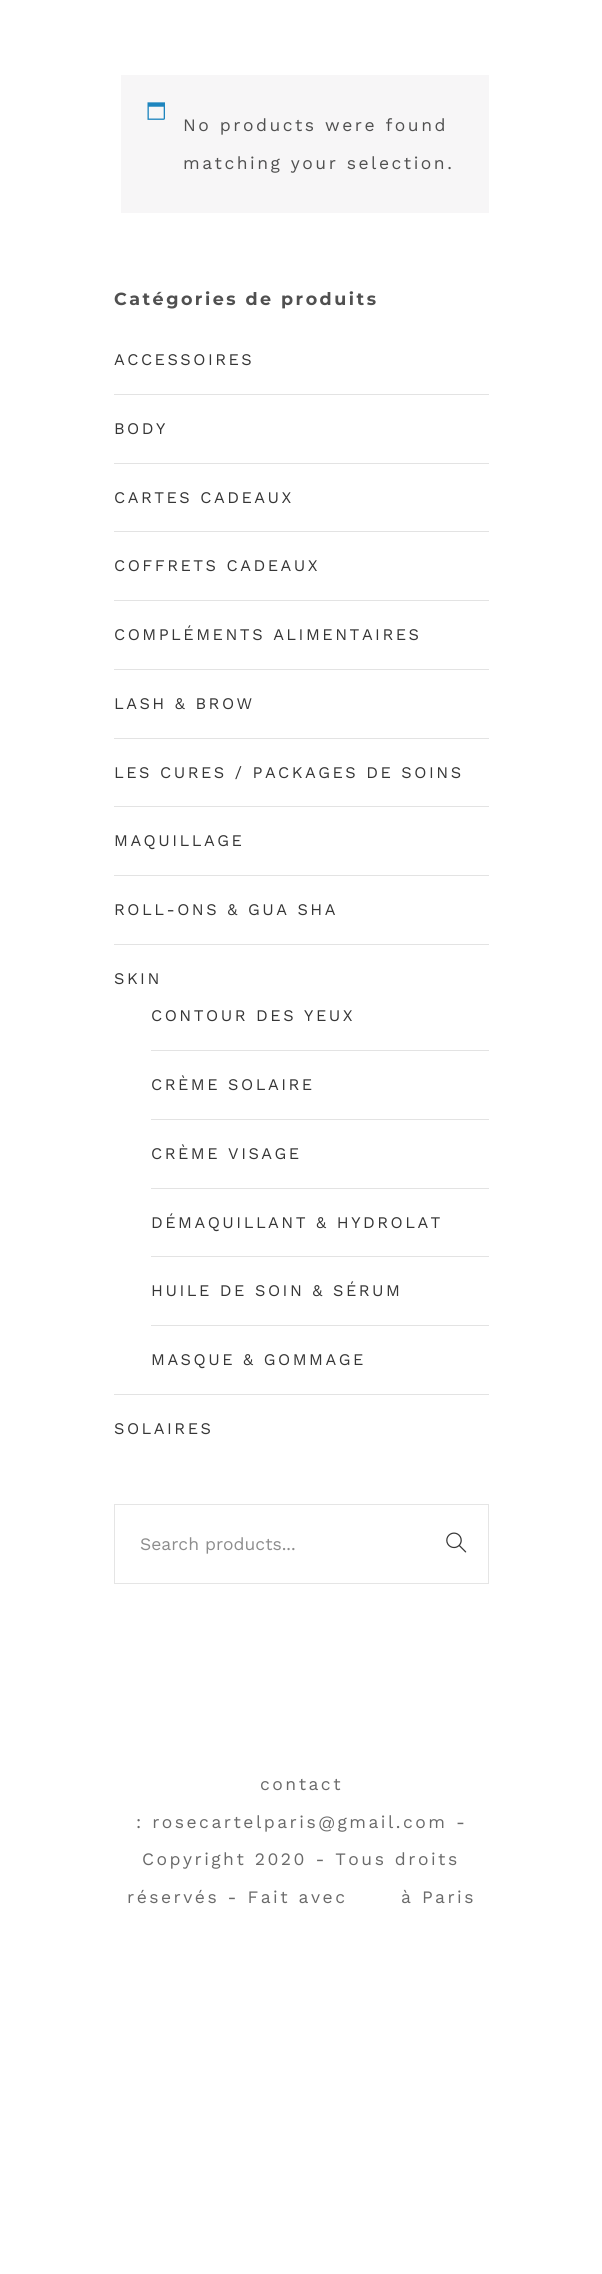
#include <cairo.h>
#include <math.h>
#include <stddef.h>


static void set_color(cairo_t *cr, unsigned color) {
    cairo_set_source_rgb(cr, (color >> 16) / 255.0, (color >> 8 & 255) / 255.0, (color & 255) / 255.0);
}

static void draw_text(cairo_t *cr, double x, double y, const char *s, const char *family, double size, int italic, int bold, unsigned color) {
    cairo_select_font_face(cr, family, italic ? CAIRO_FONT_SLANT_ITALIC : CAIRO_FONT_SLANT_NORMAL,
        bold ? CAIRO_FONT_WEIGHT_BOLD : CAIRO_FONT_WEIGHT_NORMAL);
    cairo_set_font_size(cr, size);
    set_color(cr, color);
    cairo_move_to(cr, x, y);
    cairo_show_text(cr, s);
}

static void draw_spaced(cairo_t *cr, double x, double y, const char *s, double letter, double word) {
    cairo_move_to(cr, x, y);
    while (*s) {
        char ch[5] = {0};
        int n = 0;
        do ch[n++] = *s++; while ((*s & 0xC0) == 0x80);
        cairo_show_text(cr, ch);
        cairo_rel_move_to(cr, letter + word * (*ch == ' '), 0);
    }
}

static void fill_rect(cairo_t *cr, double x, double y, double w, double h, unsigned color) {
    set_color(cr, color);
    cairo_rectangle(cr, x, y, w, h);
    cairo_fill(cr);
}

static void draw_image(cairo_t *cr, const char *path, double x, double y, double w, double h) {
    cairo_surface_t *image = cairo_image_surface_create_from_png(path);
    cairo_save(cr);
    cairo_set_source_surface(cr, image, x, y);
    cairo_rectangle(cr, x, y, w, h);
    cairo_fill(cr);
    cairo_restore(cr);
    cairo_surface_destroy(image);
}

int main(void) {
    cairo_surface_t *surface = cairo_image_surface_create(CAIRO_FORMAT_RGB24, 602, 2274);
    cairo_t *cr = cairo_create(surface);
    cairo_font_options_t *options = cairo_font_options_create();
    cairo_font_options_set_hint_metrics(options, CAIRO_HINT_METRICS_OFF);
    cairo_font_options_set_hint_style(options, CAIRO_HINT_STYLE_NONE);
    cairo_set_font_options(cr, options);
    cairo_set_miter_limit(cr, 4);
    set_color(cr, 0xFFFFFF);
    cairo_paint(cr);
    fill_rect(cr, 121, 75, 368, 138, 0xF7F6F7);
    draw_image(cr, "assets/img1.png", 147, 102, 18, 18);
    cairo_select_font_face(cr, "Work Sans", CAIRO_FONT_SLANT_NORMAL, CAIRO_FONT_WEIGHT_NORMAL);
    cairo_set_font_size(cr, 17.5);
    set_color(cr, 0x505050);
    draw_spaced(cr, 183, 131, "No products were found", 2.5, 0);
    draw_spaced(cr, 183, 169, "matching your selection.", 2.5, 0);
    cairo_select_font_face(cr, "Montserrat", CAIRO_FONT_SLANT_NORMAL, CAIRO_FONT_WEIGHT_BOLD);
    draw_spaced(cr, 114, 305, "Catégories de produits", 2.5, 0);
    fill_rect(cr, 114, 394, 375, 1, 0xE3E3E3);
    cairo_select_font_face(cr, "Work Sans", CAIRO_FONT_SLANT_NORMAL, CAIRO_FONT_WEIGHT_NORMAL);
    cairo_set_font_size(cr, 16.25);
    set_color(cr, 0x363636);
    draw_spaced(cr, 114, 365, "ACCESSOIRES", 2.5, 0);
    fill_rect(cr, 114, 463, 375, 1, 0xE3E3E3);
    set_color(cr, 0x363636);
    draw_spaced(cr, 114, 434, "BODY", 2.5, 0);
    fill_rect(cr, 114, 531, 375, 1, 0xE3E3E3);
    set_color(cr, 0x363636);
    draw_spaced(cr, 114, 503, "CARTES CADEAUX", 2.5, 0);
    fill_rect(cr, 114, 600, 375, 1, 0xE3E3E3);
    set_color(cr, 0x363636);
    draw_spaced(cr, 114, 571, "COFFRETS CADEAUX", 2.5, 0);
    fill_rect(cr, 114, 669, 375, 1, 0xE3E3E3);
    set_color(cr, 0x363636);
    draw_spaced(cr, 114, 640, "COMPLÉMENTS ALIMENTAIRES", 2.5, 0);
    fill_rect(cr, 114, 738, 375, 1, 0xE3E3E3);
    set_color(cr, 0x363636);
    draw_spaced(cr, 114, 709, "LASH & BROW", 2.5, 0);
    fill_rect(cr, 114, 806, 375, 1, 0xE3E3E3);
    set_color(cr, 0x363636);
    draw_spaced(cr, 114, 778, "LES CURES / PACKAGES DE SOINS", 2.5, 0);
    fill_rect(cr, 114, 875, 375, 1, 0xE3E3E3);
    set_color(cr, 0x363636);
    draw_spaced(cr, 114, 846, "MAQUILLAGE", 2.5, 0);
    fill_rect(cr, 114, 944, 375, 1, 0xE3E3E3);
    set_color(cr, 0x363636);
    draw_spaced(cr, 114, 915, "ROLL-ONS & GUA SHA", 2.5, 0);
    fill_rect(cr, 114, 1394, 375, 1, 0xE3E3E3);
    set_color(cr, 0x363636);
    draw_spaced(cr, 114, 984, "SKIN", 2.5, 0);
    fill_rect(cr, 151, 1050, 338, 1, 0xE3E3E3);
    set_color(cr, 0x363636);
    draw_spaced(cr, 151, 1021, "CONTOUR DES YEUX", 2.5, 0);
    fill_rect(cr, 151, 1119, 338, 1, 0xE3E3E3);
    set_color(cr, 0x363636);
    draw_spaced(cr, 151, 1090, "CRÈME SOLAIRE", 2.5, 0);
    fill_rect(cr, 151, 1188, 338, 1, 0xE3E3E3);
    set_color(cr, 0x363636);
    draw_spaced(cr, 151, 1159, "CRÈME VISAGE", 2.5, 0);
    fill_rect(cr, 151, 1256, 338, 1, 0xE3E3E3);
    set_color(cr, 0x363636);
    draw_spaced(cr, 151, 1228, "DÉMAQUILLANT & HYDROLAT", 2.5, 0);
    fill_rect(cr, 151, 1325, 338, 1, 0xE3E3E3);
    set_color(cr, 0x363636);
    draw_spaced(cr, 151, 1296, "HUILE DE SOIN & SÉRUM", 2.5, 0);
    draw_spaced(cr, 151, 1365, "MASQUE & GOMMAGE", 2.5, 0);
    draw_spaced(cr, 114, 1434, "SOLAIRES", 2.5, 0);
    cairo_rectangle(cr, 114.5, 1504.5, 374, 79);
    set_color(cr, 0xE5E5E5);
    cairo_set_line_width(cr, 1);
    cairo_stroke(cr);
    draw_text(cr, 140, 1550, "Search products...", "Work Sans", 17.5, 0, 0, 0x8D8D8D);
    draw_image(cr, "assets/img2.png", 446, 1532, 21, 21);
    set_color(cr, 0x6A6A6A);
    draw_spaced(cr, 260, 1790, "contact", 2.5, 0);
    draw_spaced(cr, 136, 1828, ": rosecartelparis@gmail.com -", 2.5, 0);
    draw_spaced(cr, 142, 1865, "Copyright 2020 - Tous droits", 2.5, 0);
    draw_spaced(cr, 127, 1903, "réservés - Fait avec", 2.5, 0);
    draw_spaced(cr, 401, 1903, "à Paris", 2.5, 0);
    cairo_surface_write_to_png(surface, "output.png");
    cairo_font_options_destroy(options);
    cairo_destroy(cr);
    cairo_surface_destroy(surface);
    return 0;
}
